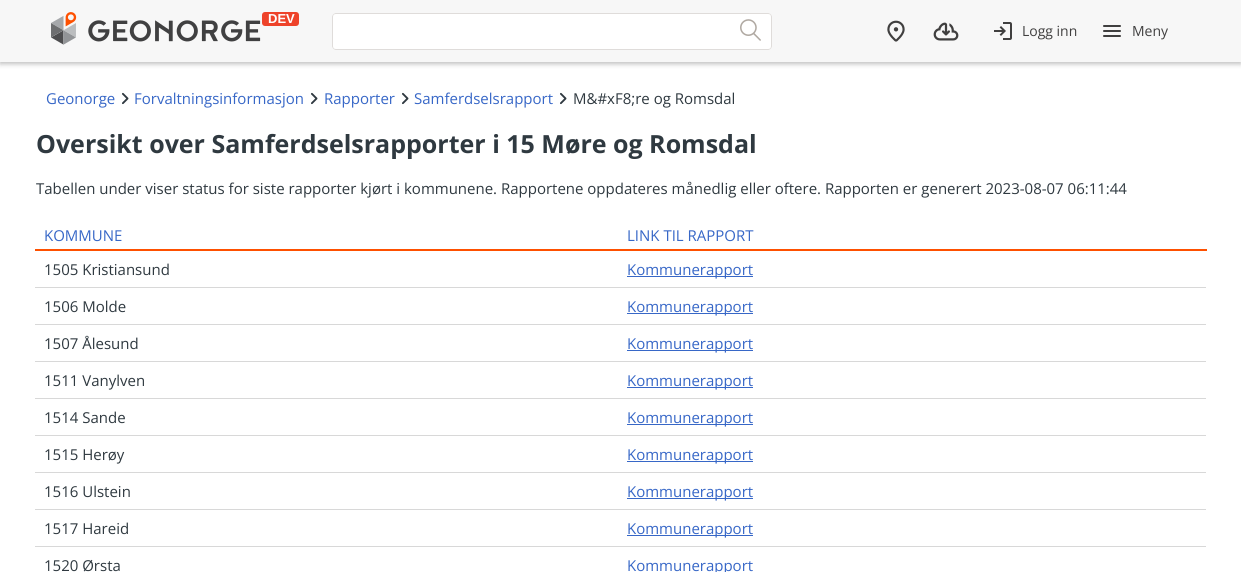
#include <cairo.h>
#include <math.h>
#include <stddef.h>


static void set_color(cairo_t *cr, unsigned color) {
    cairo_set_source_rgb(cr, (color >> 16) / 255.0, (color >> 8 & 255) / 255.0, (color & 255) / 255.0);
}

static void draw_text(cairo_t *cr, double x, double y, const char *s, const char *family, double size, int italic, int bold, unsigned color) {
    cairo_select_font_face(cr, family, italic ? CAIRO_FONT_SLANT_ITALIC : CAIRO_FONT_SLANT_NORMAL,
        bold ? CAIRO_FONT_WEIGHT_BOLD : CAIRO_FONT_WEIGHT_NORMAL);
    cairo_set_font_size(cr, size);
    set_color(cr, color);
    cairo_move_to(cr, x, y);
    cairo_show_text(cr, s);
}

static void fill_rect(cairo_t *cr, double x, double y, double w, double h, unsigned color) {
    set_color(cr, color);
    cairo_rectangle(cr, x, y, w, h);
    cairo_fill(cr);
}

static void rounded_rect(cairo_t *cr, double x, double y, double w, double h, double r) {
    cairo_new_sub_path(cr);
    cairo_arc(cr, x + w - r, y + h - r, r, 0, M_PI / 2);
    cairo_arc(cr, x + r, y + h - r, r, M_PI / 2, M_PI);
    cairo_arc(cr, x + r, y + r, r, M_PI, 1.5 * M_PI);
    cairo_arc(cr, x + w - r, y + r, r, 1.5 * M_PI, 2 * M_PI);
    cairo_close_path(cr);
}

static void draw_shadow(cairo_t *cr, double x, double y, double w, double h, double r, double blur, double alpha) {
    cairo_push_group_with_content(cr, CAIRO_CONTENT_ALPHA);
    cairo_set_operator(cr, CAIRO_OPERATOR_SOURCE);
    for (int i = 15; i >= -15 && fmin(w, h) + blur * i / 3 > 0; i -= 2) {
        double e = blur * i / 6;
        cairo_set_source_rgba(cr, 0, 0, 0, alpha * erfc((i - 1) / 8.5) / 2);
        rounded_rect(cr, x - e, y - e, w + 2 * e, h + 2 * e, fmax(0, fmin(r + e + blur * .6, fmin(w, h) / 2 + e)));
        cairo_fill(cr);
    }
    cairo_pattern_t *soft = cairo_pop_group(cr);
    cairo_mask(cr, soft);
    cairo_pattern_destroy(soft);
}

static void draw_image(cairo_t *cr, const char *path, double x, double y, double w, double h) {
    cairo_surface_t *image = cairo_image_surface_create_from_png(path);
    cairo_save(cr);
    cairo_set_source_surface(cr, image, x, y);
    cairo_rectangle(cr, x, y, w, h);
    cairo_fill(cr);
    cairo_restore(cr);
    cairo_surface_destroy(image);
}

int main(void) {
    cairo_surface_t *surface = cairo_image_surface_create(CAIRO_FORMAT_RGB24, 1241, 572);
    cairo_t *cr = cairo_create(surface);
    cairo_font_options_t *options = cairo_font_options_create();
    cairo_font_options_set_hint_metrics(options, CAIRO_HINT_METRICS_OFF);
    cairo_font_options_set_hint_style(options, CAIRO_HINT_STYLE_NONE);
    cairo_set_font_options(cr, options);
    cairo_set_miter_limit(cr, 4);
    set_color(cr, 0xFFFFFF);
    cairo_paint(cr);
    set_color(cr, 0x000000);
    draw_shadow(cr, 0, 2, 1241, 62, 0, 2.5, 0.26);
    fill_rect(cr, 0, 0, 1241, 62, 0xF7F7F7);
    draw_image(cr, "assets/img1.png", 51, 12, 248, 33);
    draw_text(cr, 268, 23, "DEV", "Liberation Sans", 13, 0, 1, 0xFFFFFF);
    cairo_new_path(cr);
    cairo_move_to(cr, 336, 13);
    cairo_line_to(cr, 730, 13);
    cairo_line_to(cr, 730, 50);
    cairo_line_to(cr, 336, 50);
    cairo_curve_to(cr, 334, 50, 332, 48, 332, 46);
    cairo_line_to(cr, 332, 17);
    cairo_curve_to(cr, 332, 15, 334, 13, 336, 13);
    cairo_close_path(cr);
    cairo_fill(cr);
    set_color(cr, 0xDFDCDA);
    cairo_set_fill_rule(cr, CAIRO_FILL_RULE_EVEN_ODD);
    cairo_new_path(cr);
    cairo_move_to(cr, 336, 13);
    cairo_line_to(cr, 730, 13);
    cairo_line_to(cr, 730, 50);
    cairo_line_to(cr, 336, 50);
    cairo_curve_to(cr, 334, 50, 332, 48, 332, 46);
    cairo_line_to(cr, 332, 17);
    cairo_curve_to(cr, 332, 15, 334, 13, 336, 13);
    cairo_close_path(cr);
    cairo_move_to(cr, 336, 14);
    cairo_line_to(cr, 730, 14);
    cairo_line_to(cr, 730, 49);
    cairo_line_to(cr, 336, 49);
    cairo_curve_to(cr, 334, 49, 333, 48, 333, 46);
    cairo_line_to(cr, 333, 17);
    cairo_curve_to(cr, 333, 15, 334, 14, 336, 14);
    cairo_close_path(cr);
    cairo_fill(cr);
    set_color(cr, 0xFFFFFF);
    cairo_new_path(cr);
    cairo_move_to(cr, 730, 13);
    cairo_line_to(cr, 768, 13);
    cairo_curve_to(cr, 770, 13, 772, 15, 772, 17);
    cairo_line_to(cr, 772, 46);
    cairo_curve_to(cr, 772, 48, 770, 50, 768, 50);
    cairo_line_to(cr, 730, 50);
    cairo_close_path(cr);
    cairo_fill(cr);
    set_color(cr, 0xDFDCDA);
    cairo_new_path(cr);
    cairo_move_to(cr, 730, 13);
    cairo_line_to(cr, 768, 13);
    cairo_curve_to(cr, 770, 13, 772, 15, 772, 17);
    cairo_line_to(cr, 772, 46);
    cairo_curve_to(cr, 772, 48, 770, 50, 768, 50);
    cairo_line_to(cr, 730, 50);
    cairo_close_path(cr);
    cairo_move_to(cr, 730, 14);
    cairo_line_to(cr, 768, 14);
    cairo_curve_to(cr, 770, 14, 771, 15, 771, 17);
    cairo_line_to(cr, 771, 46);
    cairo_curve_to(cr, 771, 48, 770, 49, 768, 49);
    cairo_line_to(cr, 730, 49);
    cairo_close_path(cr);
    cairo_fill(cr);
    draw_image(cr, "assets/img2.png", 740, 19, 21, 22);
    draw_image(cr, "assets/img3.png", 887, 20, 18, 22);
    draw_image(cr, "assets/img4.png", 933, 22, 26, 19);
    draw_image(cr, "assets/img5.png", 994, 22, 18, 18);
    draw_text(cr, 1022, 36, "Logg inn", "Open Sans", 14, 0, 0, 0x403F3F);
    draw_image(cr, "assets/img6.png", 1103, 25, 18, 12);
    draw_text(cr, 1132, 36, "Meny", "Open Sans", 14, 0, 0, 0x403F3F);
    draw_text(cr, 46, 104, "Geonorge", "Open Sans", 15, 0, 0, 0x3767C7);
    draw_image(cr, "assets/img7.png", 122, 92, 7, 13);
    draw_text(cr, 134, 104, "Forvaltningsinformasjon", "Open Sans", 15, 0, 0, 0x3767C7);
    draw_image(cr, "assets/img7.png", 311, 92, 7, 13);
    draw_text(cr, 324, 104, "Rapporter", "Open Sans", 15, 0, 0, 0x3767C7);
    draw_image(cr, "assets/img7.png", 402, 92, 7, 13);
    draw_text(cr, 414, 104, "Samferdselsrapport", "Open Sans", 15, 0, 0, 0x3767C7);
    draw_image(cr, "assets/img7.png", 560, 92, 7, 13);
    draw_text(cr, 573, 104, "M&#xF8;re og Romsdal", "Open Sans", 15, 0, 0, 0x2F3940);
    draw_text(cr, 36, 153, "Oversikt over Samferdselsrapporter i 15 Møre og Romsdal", "Open Sans", 25, 0, 1, 0x2F3940);
    draw_text(cr, 36, 194, "Tabellen under viser status for siste rapporter kjørt i kommunene. Rapportene oppdateres månedlig eller oftere. Rapporten er generert 2023-08-07 06:11:44", "Open Sans", 15, 0, 0, 0x2F3940);
    draw_text(cr, 44, 241, "KOMMUNE", "Open Sans", 15, 0, 0, 0x3767C7);
    fill_rect(cr, 35, 249, 1172, 2, 0xFE5000);
    draw_text(cr, 627, 241, "LINK TIL RAPPORT", "Open Sans", 15, 0, 0, 0x3767C7);
    draw_text(cr, 44, 275, "1505 Kristiansund", "Open Sans", 15, 0, 0, 0x2F3940);
    fill_rect(cr, 35, 287, 1171, 1, 0xD8D8D8);
    fill_rect(cr, 627, 276, 126, 1, 0x3767C7);
    draw_text(cr, 627, 275, "Kommunerapport", "Open Sans", 15, 0, 0, 0x3767C7);
    draw_text(cr, 44, 312, "1506 Molde", "Open Sans", 15, 0, 0, 0x2F3940);
    fill_rect(cr, 35, 324, 1171, 1, 0xD8D8D8);
    fill_rect(cr, 627, 313, 126, 1, 0x3767C7);
    draw_text(cr, 627, 312, "Kommunerapport", "Open Sans", 15, 0, 0, 0x3767C7);
    draw_text(cr, 44, 349, "1507 Ålesund", "Open Sans", 15, 0, 0, 0x2F3940);
    fill_rect(cr, 35, 361, 1171, 1, 0xD8D8D8);
    fill_rect(cr, 627, 350, 126, 1, 0x3767C7);
    draw_text(cr, 627, 349, "Kommunerapport", "Open Sans", 15, 0, 0, 0x3767C7);
    draw_text(cr, 44, 386, "1511 Vanylven", "Open Sans", 15, 0, 0, 0x2F3940);
    fill_rect(cr, 35, 398, 1171, 1, 0xD8D8D8);
    fill_rect(cr, 627, 387, 126, 1, 0x3767C7);
    draw_text(cr, 627, 386, "Kommunerapport", "Open Sans", 15, 0, 0, 0x3767C7);
    draw_text(cr, 44, 423, "1514 Sande", "Open Sans", 15, 0, 0, 0x2F3940);
    fill_rect(cr, 35, 435, 1171, 1, 0xD8D8D8);
    fill_rect(cr, 627, 424, 126, 1, 0x3767C7);
    draw_text(cr, 627, 423, "Kommunerapport", "Open Sans", 15, 0, 0, 0x3767C7);
    draw_text(cr, 44, 460, "1515 Herøy", "Open Sans", 15, 0, 0, 0x2F3940);
    fill_rect(cr, 35, 472, 1171, 1, 0xD8D8D8);
    fill_rect(cr, 627, 461, 126, 1, 0x3767C7);
    draw_text(cr, 627, 460, "Kommunerapport", "Open Sans", 15, 0, 0, 0x3767C7);
    draw_text(cr, 44, 497, "1516 Ulstein", "Open Sans", 15, 0, 0, 0x2F3940);
    fill_rect(cr, 35, 509, 1171, 1, 0xD8D8D8);
    fill_rect(cr, 627, 498, 126, 1, 0x3767C7);
    draw_text(cr, 627, 497, "Kommunerapport", "Open Sans", 15, 0, 0, 0x3767C7);
    draw_text(cr, 44, 534, "1517 Hareid", "Open Sans", 15, 0, 0, 0x2F3940);
    fill_rect(cr, 35, 546, 1171, 1, 0xD8D8D8);
    fill_rect(cr, 627, 535, 126, 1, 0x3767C7);
    draw_text(cr, 627, 534, "Kommunerapport", "Open Sans", 15, 0, 0, 0x3767C7);
    draw_text(cr, 44, 571, "1520 Ørsta", "Open Sans", 15, 0, 0, 0x2F3940);
    draw_text(cr, 627, 571, "Kommunerapport", "Open Sans", 15, 0, 0, 0x3767C7);
    cairo_surface_write_to_png(surface, "output.png");
    cairo_font_options_destroy(options);
    cairo_destroy(cr);
    cairo_surface_destroy(surface);
    return 0;
}
